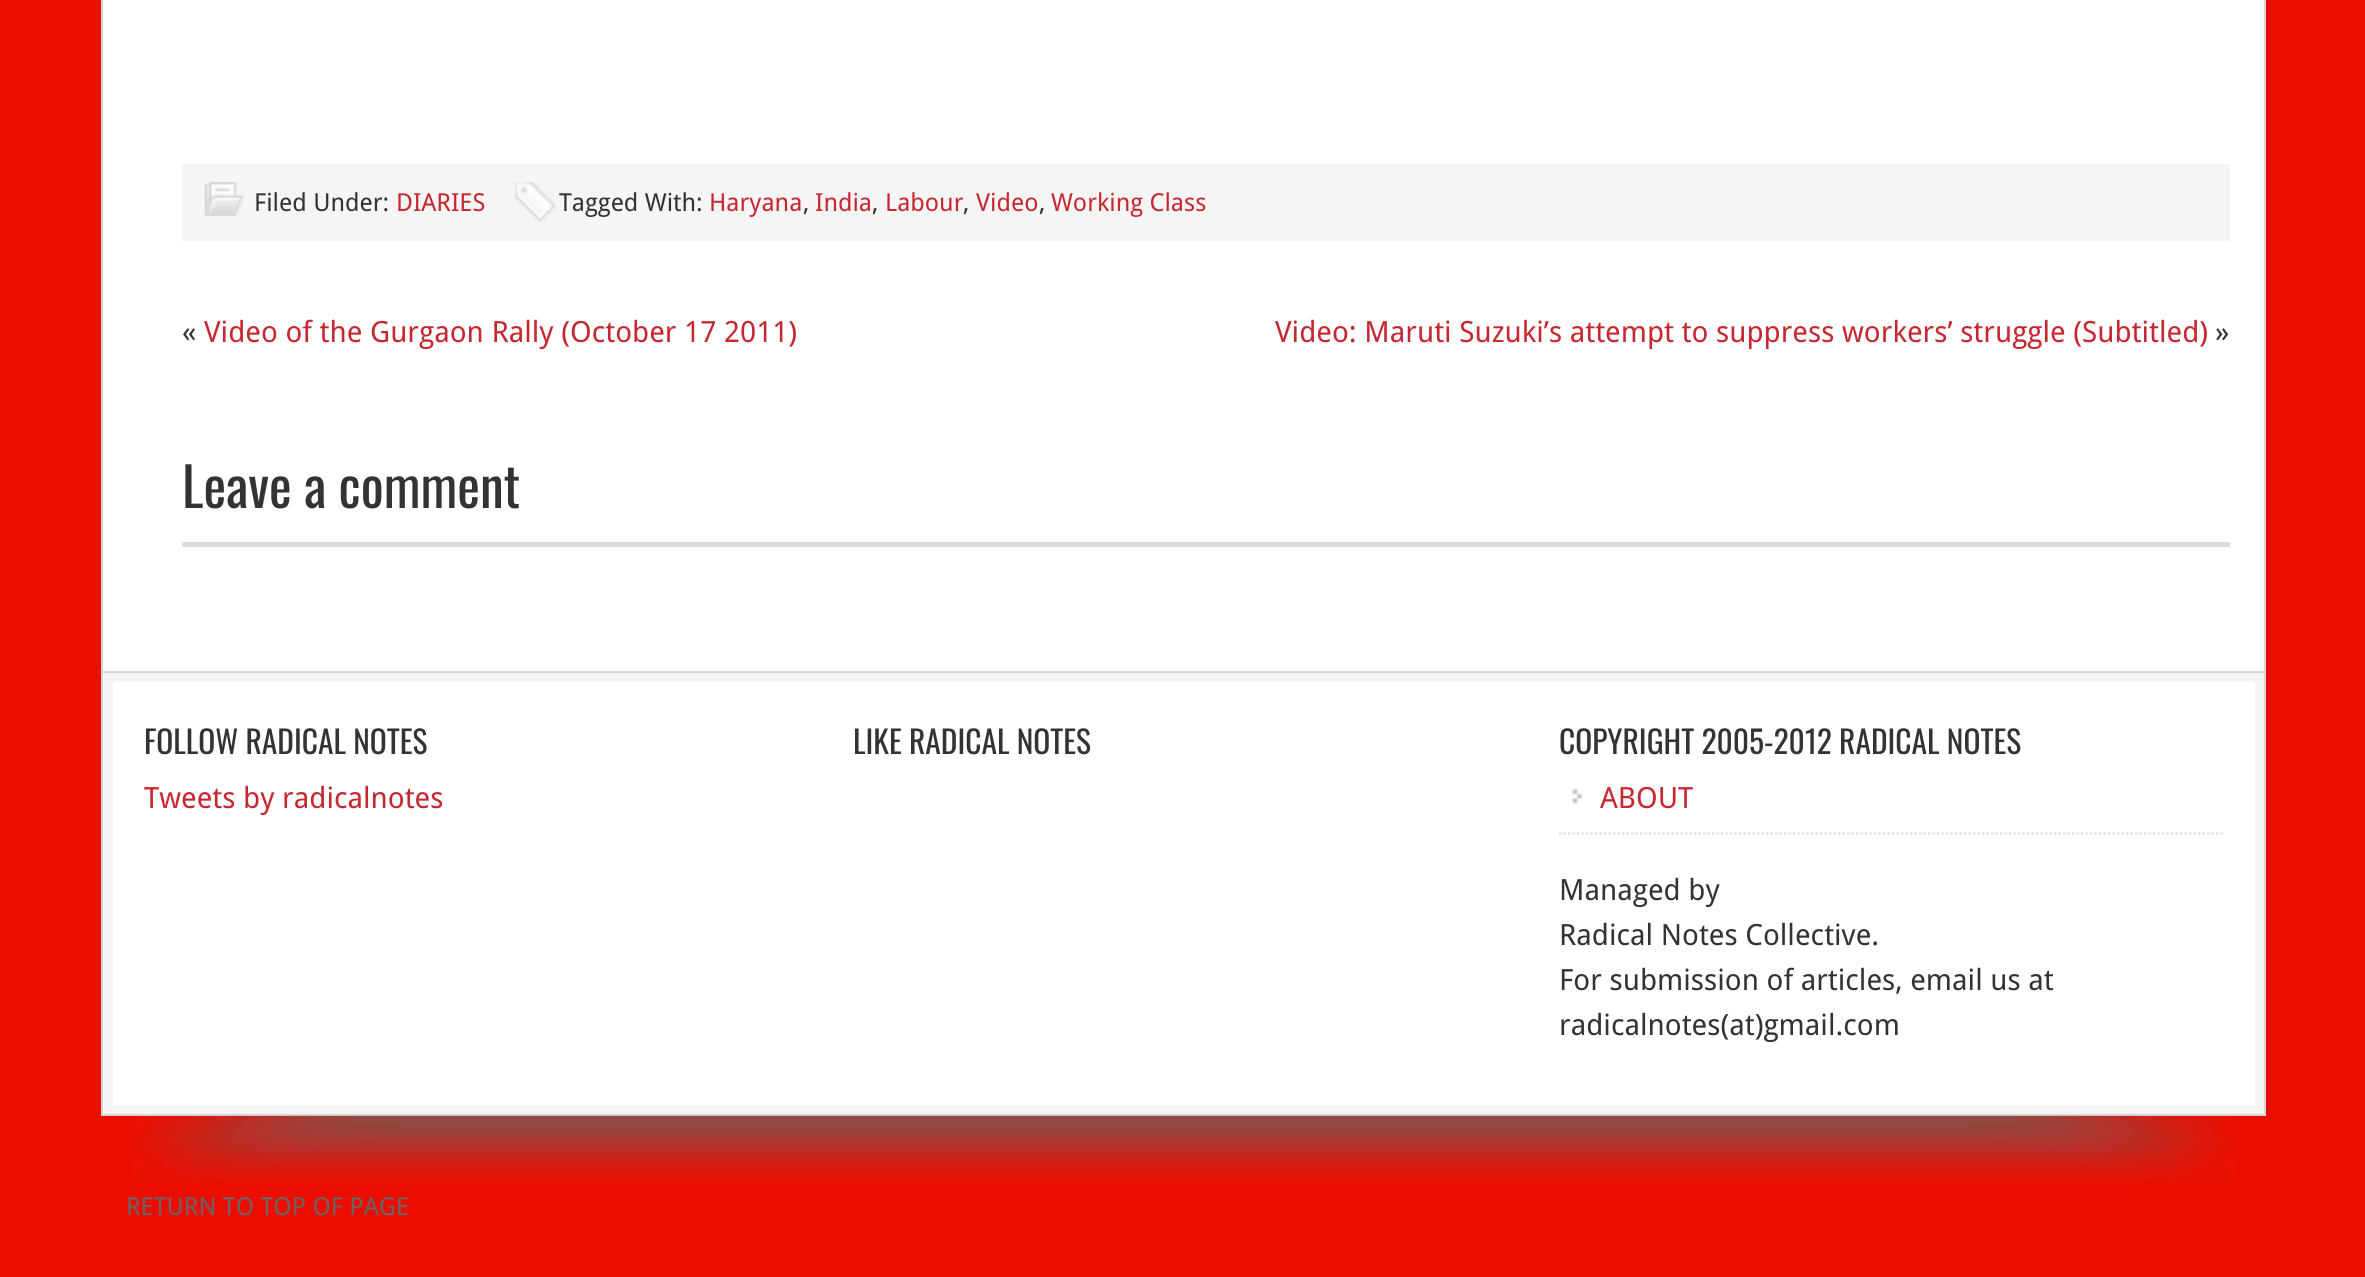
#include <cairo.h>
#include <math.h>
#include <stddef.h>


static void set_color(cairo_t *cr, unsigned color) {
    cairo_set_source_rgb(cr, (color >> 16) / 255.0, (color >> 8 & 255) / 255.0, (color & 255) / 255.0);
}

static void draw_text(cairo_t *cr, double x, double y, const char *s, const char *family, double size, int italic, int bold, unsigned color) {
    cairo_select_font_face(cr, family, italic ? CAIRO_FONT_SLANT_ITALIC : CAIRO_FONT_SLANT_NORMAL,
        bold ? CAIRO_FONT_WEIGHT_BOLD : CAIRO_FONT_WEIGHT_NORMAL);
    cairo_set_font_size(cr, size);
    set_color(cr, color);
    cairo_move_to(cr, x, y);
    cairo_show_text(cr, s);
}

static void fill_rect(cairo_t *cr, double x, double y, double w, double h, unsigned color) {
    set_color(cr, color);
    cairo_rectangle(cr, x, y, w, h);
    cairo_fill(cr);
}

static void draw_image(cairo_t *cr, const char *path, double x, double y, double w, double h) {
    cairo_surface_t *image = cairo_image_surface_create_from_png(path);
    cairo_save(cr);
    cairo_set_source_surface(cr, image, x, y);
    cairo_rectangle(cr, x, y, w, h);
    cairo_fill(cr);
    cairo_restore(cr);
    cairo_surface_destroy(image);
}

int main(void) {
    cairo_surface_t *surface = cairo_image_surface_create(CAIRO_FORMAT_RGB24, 2365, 1277);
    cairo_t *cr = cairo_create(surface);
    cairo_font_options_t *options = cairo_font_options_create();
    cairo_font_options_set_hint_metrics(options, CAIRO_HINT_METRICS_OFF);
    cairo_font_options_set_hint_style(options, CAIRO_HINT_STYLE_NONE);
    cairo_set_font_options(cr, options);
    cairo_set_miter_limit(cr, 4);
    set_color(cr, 0xEB0E00);
    cairo_paint(cr);
    fill_rect(cr, 103, 0, 2161, 671, 0xFFFFFF);
    fill_rect(cr, 2264, 0, 2, 1116, 0xD5D5D5);
    fill_rect(cr, 101, 671, 2165, 2, 0xD5D5D5);
    fill_rect(cr, 101, 0, 2, 673, 0xD5D5D5);
    fill_rect(cr, 182, 164, 2048, 77, 0xF5F5F5);
    draw_image(cr, "assets/img1.png", 204, 182, 39, 34);
    draw_text(cr, 254, 211, "Filed Under:", "Droid Sans", 24.75, 0, 0, 0x333333);
    draw_text(cr, 396, 211, "DIARIES", "Droid Sans", 24.75, 0, 0, 0xC72730);
    draw_image(cr, "assets/img2.png", 515, 182, 41, 41);
    draw_text(cr, 559, 211, "Tagged With:", "Droid Sans", 24.75, 0, 0, 0x333333);
    draw_text(cr, 709, 211, "Haryana", "Droid Sans", 24.75, 0, 0, 0xC72730);
    draw_text(cr, 803, 211, ",", "Droid Sans", 24.75, 0, 0, 0x333333);
    draw_text(cr, 815, 211, "India", "Droid Sans", 24.75, 0, 0, 0xC72730);
    draw_text(cr, 872, 211, ",", "Droid Sans", 24.75, 0, 0, 0x333333);
    draw_text(cr, 885, 211, "Labour", "Droid Sans", 24.75, 0, 0, 0xC72730);
    draw_text(cr, 963, 211, ",", "Droid Sans", 24.75, 0, 0, 0x333333);
    draw_text(cr, 976, 211, "Video", "Droid Sans", 24.75, 0, 0, 0xC72730);
    draw_text(cr, 1039, 211, ",", "Droid Sans", 24.75, 0, 0, 0x333333);
    draw_text(cr, 1051, 211, "Working Class", "Droid Sans", 24.75, 0, 0, 0xC72730);
    draw_text(cr, 182, 342, "«", "Droid Sans", 29.25, 0, 0, 0x333333);
    draw_text(cr, 204, 342, "Video of the Gurgaon Rally (October 17 2011)", "Droid Sans", 29.25, 0, 0, 0xC72730);
    draw_text(cr, 1275, 342, "Video: Maruti Suzuki’s attempt to suppress workers’ struggle (Subtitled)", "Droid Sans", 29.25, 0, 0, 0xC72730);
    draw_text(cr, 2215, 342, "»", "Droid Sans", 29.25, 0, 0, 0x333333);
    draw_text(cr, 182, 508, "Leave a comment", "Oswald", 54, 0, 0, 0x333333);
    fill_rect(cr, 182, 542, 2048, 5, 0xDCDCDE);
    fill_rect(cr, 103, 673, 2152, 441, 0xFFFFFF);
    fill_rect(cr, 101, 1114, 2165, 2, 0xD5D5D5);
    fill_rect(cr, 101, 673, 2, 443, 0xD5D5D5);
    cairo_rectangle(cr, 108.5, 677.5, 2151, 432);
    set_color(cr, 0xF5F5F5);
    cairo_set_line_width(cr, 9);
    cairo_stroke(cr);
    draw_text(cr, 144, 754, "FOLLOW RADICAL NOTES", "Oswald", 31.5, 0, 0, 0x333333);
    draw_text(cr, 144, 808, "Tweets by radicalnotes", "Droid Sans", 29.25, 0, 0, 0xC72730);
    draw_text(cr, 853, 754, "LIKE RADICAL NOTES", "Oswald", 31.5, 0, 0, 0x333333);
    draw_text(cr, 1559, 754, "COPYRIGHT 2005-2012 RADICAL NOTES", "Oswald", 31.5, 0, 0, 0x333333);
    draw_image(cr, "assets/img3.png", 1572, 789, 11, 15);
    cairo_new_path(cr);
    cairo_move_to(cr, 1559, 833.5);
    cairo_line_to(cr, 2223, 833.5);
    set_color(cr, 0xDDDDDD);
    cairo_set_line_width(cr, 2.2);
    cairo_set_dash(cr, (double[]){2.25, 2.25}, 2, 0);
    cairo_stroke(cr);
    draw_text(cr, 1600, 808, "ABOUT", "Droid Sans", 29.25, 0, 0, 0xC72730);
    draw_text(cr, 1559, 900, "Managed by", "Droid Sans", 29.25, 0, 0, 0x333333);
    draw_text(cr, 1559, 945, "Radical Notes Collective.", "Droid Sans", 29.25, 0, 0, 0x333333);
    draw_text(cr, 1559, 990, "For submission of articles, email us at", "Droid Sans", 29.25, 0, 0, 0x333333);
    draw_text(cr, 1559, 1035, "radicalnotes(at)gmail.com", "Droid Sans", 29.25, 0, 0, 0x333333);
    draw_image(cr, "assets/img4.png", 132, 1115, 2104, 71);
    draw_text(cr, 126, 1215, "RETURN TO TOP OF PAGE", "Droid Sans", 24.75, 0, 0, 0x666666);
    cairo_surface_write_to_png(surface, "output.png");
    cairo_font_options_destroy(options);
    cairo_destroy(cr);
    cairo_surface_destroy(surface);
    return 0;
}
